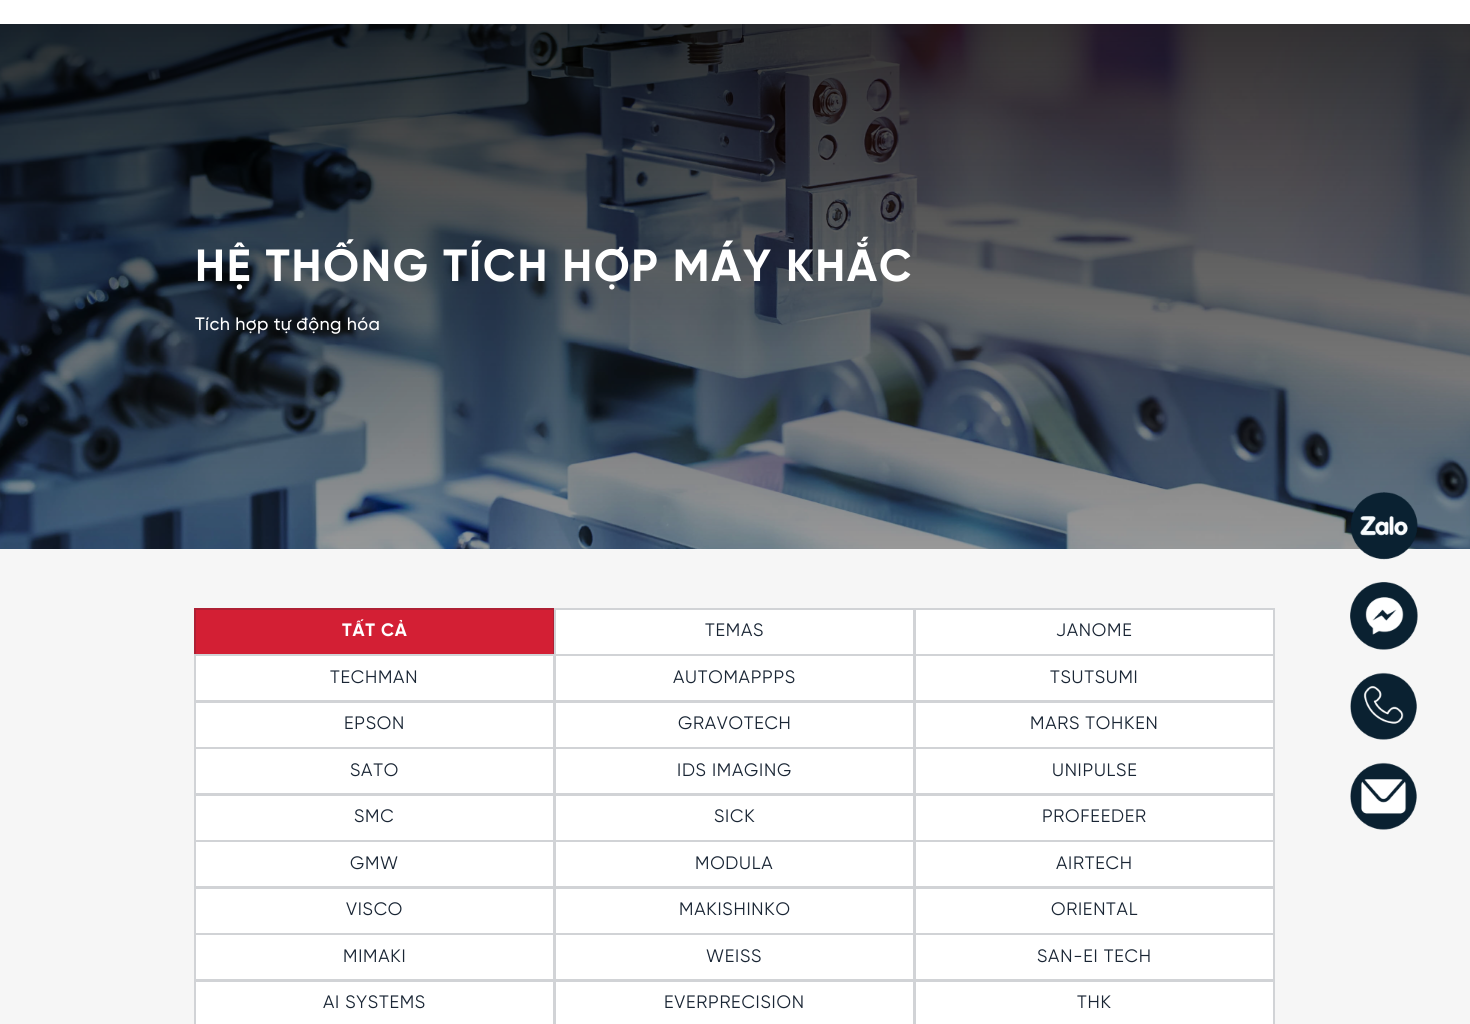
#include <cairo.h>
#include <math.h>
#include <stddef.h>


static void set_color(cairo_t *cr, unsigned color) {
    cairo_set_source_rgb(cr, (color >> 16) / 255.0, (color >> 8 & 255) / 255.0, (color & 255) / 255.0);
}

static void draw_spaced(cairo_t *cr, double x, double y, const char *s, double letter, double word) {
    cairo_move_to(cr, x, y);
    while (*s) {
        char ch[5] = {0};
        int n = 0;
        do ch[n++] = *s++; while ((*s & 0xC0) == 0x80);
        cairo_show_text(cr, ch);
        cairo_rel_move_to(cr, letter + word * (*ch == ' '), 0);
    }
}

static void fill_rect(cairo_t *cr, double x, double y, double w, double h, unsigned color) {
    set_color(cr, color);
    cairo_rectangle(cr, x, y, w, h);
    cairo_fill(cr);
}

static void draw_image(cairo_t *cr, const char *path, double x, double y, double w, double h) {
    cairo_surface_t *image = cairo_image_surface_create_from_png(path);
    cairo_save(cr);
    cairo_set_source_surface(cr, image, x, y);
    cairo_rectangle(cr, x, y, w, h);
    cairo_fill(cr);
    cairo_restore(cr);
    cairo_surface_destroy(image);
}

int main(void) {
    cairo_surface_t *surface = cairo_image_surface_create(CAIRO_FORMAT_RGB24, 1470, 1024);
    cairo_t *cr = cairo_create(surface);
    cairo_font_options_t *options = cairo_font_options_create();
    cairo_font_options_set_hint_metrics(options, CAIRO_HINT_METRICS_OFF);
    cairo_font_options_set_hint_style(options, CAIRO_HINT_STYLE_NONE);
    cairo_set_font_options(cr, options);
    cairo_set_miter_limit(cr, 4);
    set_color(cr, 0xFFFFFF);
    cairo_paint(cr);
    draw_image(cr, "assets/img1.png", 0, 24, 1470, 525);
    cairo_select_font_face(cr, "Gilroy", CAIRO_FONT_SLANT_NORMAL, CAIRO_FONT_WEIGHT_BOLD);
    cairo_set_font_size(cr, 45);
    set_color(cr, 0xFFFFFF);
    draw_spaced(cr, 195, 281, "HỆ THỐNG TÍCH HỢP MÁY KHẮC", 1.8, 0);
    cairo_select_font_face(cr, "Gilroy Medium", CAIRO_FONT_SLANT_NORMAL, CAIRO_FONT_WEIGHT_NORMAL);
    cairo_set_font_size(cr, 18);
    draw_spaced(cr, 195, 330, "Tích hợp tự động hóa", 0.4, 0);
    fill_rect(cr, 0, 549, 1470, 475, 0xF6F6F6);
    set_color(cr, 0xD31F34);
    cairo_rectangle(cr, 195, 609, 359, 46);
    cairo_fill_preserve(cr);
    set_color(cr, 0xAE2034);
    cairo_stroke(cr);
    cairo_select_font_face(cr, "Gilroy", CAIRO_FONT_SLANT_NORMAL, CAIRO_FONT_WEIGHT_BOLD);
    set_color(cr, 0xFFFFFF);
    draw_spaced(cr, 342, 636, "TẤT CẢ", 0.75, 0);
    cairo_rectangle(cr, 555, 609, 359, 46);
    cairo_fill_preserve(cr);
    set_color(cr, 0xD1D3D6);
    cairo_stroke(cr);
    cairo_select_font_face(cr, "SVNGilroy", CAIRO_FONT_SLANT_NORMAL, CAIRO_FONT_WEIGHT_NORMAL);
    set_color(cr, 0x192534);
    draw_spaced(cr, 705, 636, "TEMAS", 0.75, 0);
    set_color(cr, 0xFFFFFF);
    cairo_rectangle(cr, 915, 609, 359, 46);
    cairo_fill_preserve(cr);
    set_color(cr, 0xD1D3D6);
    cairo_stroke(cr);
    set_color(cr, 0x192534);
    draw_spaced(cr, 1056, 636, "JANOME", 0.75, 0);
    set_color(cr, 0xFFFFFF);
    cairo_rectangle(cr, 195, 655, 359, 46);
    cairo_fill_preserve(cr);
    set_color(cr, 0xD1D3D6);
    cairo_stroke(cr);
    set_color(cr, 0x192534);
    draw_spaced(cr, 330, 683, "TECHMAN", 0.75, 0);
    set_color(cr, 0xFFFFFF);
    cairo_rectangle(cr, 555, 655, 359, 46);
    cairo_fill_preserve(cr);
    set_color(cr, 0xD1D3D6);
    cairo_stroke(cr);
    set_color(cr, 0x192534);
    draw_spaced(cr, 673, 683, "AUTOMAPPPS", 0.75, 0);
    set_color(cr, 0xFFFFFF);
    cairo_rectangle(cr, 915, 655, 359, 46);
    cairo_fill_preserve(cr);
    set_color(cr, 0xD1D3D6);
    cairo_stroke(cr);
    set_color(cr, 0x192534);
    draw_spaced(cr, 1050, 683, "TSUTSUMI", 0.75, 0);
    set_color(cr, 0xFFFFFF);
    cairo_rectangle(cr, 195, 702, 359, 46);
    cairo_fill_preserve(cr);
    set_color(cr, 0xD1D3D6);
    cairo_stroke(cr);
    set_color(cr, 0x192534);
    draw_spaced(cr, 344, 729, "EPSON", 0.75, 0);
    set_color(cr, 0xFFFFFF);
    cairo_rectangle(cr, 555, 702, 359, 46);
    cairo_fill_preserve(cr);
    set_color(cr, 0xD1D3D6);
    cairo_stroke(cr);
    set_color(cr, 0x192534);
    draw_spaced(cr, 678, 729, "GRAVOTECH", 0.75, 0);
    set_color(cr, 0xFFFFFF);
    cairo_rectangle(cr, 915, 702, 359, 46);
    cairo_fill_preserve(cr);
    set_color(cr, 0xD1D3D6);
    cairo_stroke(cr);
    set_color(cr, 0x192534);
    draw_spaced(cr, 1030, 729, "MARS TOHKEN", 0.75, 0);
    set_color(cr, 0xFFFFFF);
    cairo_rectangle(cr, 195, 748, 359, 46);
    cairo_fill_preserve(cr);
    set_color(cr, 0xD1D3D6);
    cairo_stroke(cr);
    set_color(cr, 0x192534);
    draw_spaced(cr, 350, 776, "SATO", 0.75, 0);
    set_color(cr, 0xFFFFFF);
    cairo_rectangle(cr, 555, 748, 359, 46);
    cairo_fill_preserve(cr);
    set_color(cr, 0xD1D3D6);
    cairo_stroke(cr);
    set_color(cr, 0x192534);
    draw_spaced(cr, 677, 776, "IDS IMAGING", 0.75, 0);
    set_color(cr, 0xFFFFFF);
    cairo_rectangle(cr, 915, 748, 359, 46);
    cairo_fill_preserve(cr);
    set_color(cr, 0xD1D3D6);
    cairo_stroke(cr);
    set_color(cr, 0x192534);
    draw_spaced(cr, 1052, 776, "UNIPULSE", 0.75, 0);
    set_color(cr, 0xFFFFFF);
    cairo_rectangle(cr, 195, 795, 359, 46);
    cairo_fill_preserve(cr);
    set_color(cr, 0xD1D3D6);
    cairo_stroke(cr);
    set_color(cr, 0x192534);
    draw_spaced(cr, 354, 822, "SMC", 0.75, 0);
    set_color(cr, 0xFFFFFF);
    cairo_rectangle(cr, 555, 795, 359, 46);
    cairo_fill_preserve(cr);
    set_color(cr, 0xD1D3D6);
    cairo_stroke(cr);
    set_color(cr, 0x192534);
    draw_spaced(cr, 714, 822, "SICK", 0.75, 0);
    set_color(cr, 0xFFFFFF);
    cairo_rectangle(cr, 915, 795, 359, 46);
    cairo_fill_preserve(cr);
    set_color(cr, 0xD1D3D6);
    cairo_stroke(cr);
    set_color(cr, 0x192534);
    draw_spaced(cr, 1042, 822, "PROFEEDER", 0.75, 0);
    set_color(cr, 0xFFFFFF);
    cairo_rectangle(cr, 195, 841, 359, 46);
    cairo_fill_preserve(cr);
    set_color(cr, 0xD1D3D6);
    cairo_stroke(cr);
    set_color(cr, 0x192534);
    draw_spaced(cr, 350, 869, "GMW", 0.75, 0);
    set_color(cr, 0xFFFFFF);
    cairo_rectangle(cr, 555, 841, 359, 46);
    cairo_fill_preserve(cr);
    set_color(cr, 0xD1D3D6);
    cairo_stroke(cr);
    set_color(cr, 0x192534);
    draw_spaced(cr, 695, 869, "MODULA", 0.75, 0);
    set_color(cr, 0xFFFFFF);
    cairo_rectangle(cr, 915, 841, 359, 46);
    cairo_fill_preserve(cr);
    set_color(cr, 0xD1D3D6);
    cairo_stroke(cr);
    set_color(cr, 0x192534);
    draw_spaced(cr, 1056, 869, "AIRTECH", 0.75, 0);
    set_color(cr, 0xFFFFFF);
    cairo_rectangle(cr, 195, 888, 359, 46);
    cairo_fill_preserve(cr);
    set_color(cr, 0xD1D3D6);
    cairo_stroke(cr);
    set_color(cr, 0x192534);
    draw_spaced(cr, 346, 915, "VISCO", 0.75, 0);
    set_color(cr, 0xFFFFFF);
    cairo_rectangle(cr, 555, 888, 359, 46);
    cairo_fill_preserve(cr);
    set_color(cr, 0xD1D3D6);
    cairo_stroke(cr);
    set_color(cr, 0x192534);
    draw_spaced(cr, 679, 915, "MAKISHINKO", 0.75, 0);
    set_color(cr, 0xFFFFFF);
    cairo_rectangle(cr, 915, 888, 359, 46);
    cairo_fill_preserve(cr);
    set_color(cr, 0xD1D3D6);
    cairo_stroke(cr);
    set_color(cr, 0x192534);
    draw_spaced(cr, 1051, 915, "ORIENTAL", 0.75, 0);
    set_color(cr, 0xFFFFFF);
    cairo_rectangle(cr, 195, 934, 359, 46);
    cairo_fill_preserve(cr);
    set_color(cr, 0xD1D3D6);
    cairo_stroke(cr);
    set_color(cr, 0x192534);
    draw_spaced(cr, 343, 962, "MIMAKI", 0.75, 0);
    set_color(cr, 0xFFFFFF);
    cairo_rectangle(cr, 555, 934, 359, 46);
    cairo_fill_preserve(cr);
    set_color(cr, 0xD1D3D6);
    cairo_stroke(cr);
    set_color(cr, 0x192534);
    draw_spaced(cr, 706, 962, "WEISS", 0.75, 0);
    set_color(cr, 0xFFFFFF);
    cairo_rectangle(cr, 915, 934, 359, 46);
    cairo_fill_preserve(cr);
    set_color(cr, 0xD1D3D6);
    cairo_stroke(cr);
    set_color(cr, 0x192534);
    draw_spaced(cr, 1037, 962, "SAN-EI TECH", 0.75, 0);
    set_color(cr, 0xFFFFFF);
    cairo_rectangle(cr, 195, 981, 359, 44);
    cairo_fill_preserve(cr);
    set_color(cr, 0xD1D3D6);
    cairo_stroke(cr);
    set_color(cr, 0x192534);
    draw_spaced(cr, 323, 1008, "AI SYSTEMS", 0.75, 0);
    set_color(cr, 0xFFFFFF);
    cairo_rectangle(cr, 555, 981, 359, 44);
    cairo_fill_preserve(cr);
    set_color(cr, 0xD1D3D6);
    cairo_stroke(cr);
    set_color(cr, 0x192534);
    draw_spaced(cr, 664, 1008, "EVERPRECISION", 0.75, 0);
    set_color(cr, 0xFFFFFF);
    cairo_rectangle(cr, 915, 981, 359, 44);
    cairo_fill_preserve(cr);
    set_color(cr, 0xD1D3D6);
    cairo_stroke(cr);
    set_color(cr, 0x192534);
    draw_spaced(cr, 1077, 1008, "THK", 0.75, 0);
    draw_image(cr, "assets/img2.png", 1351, 492, 67, 68);
    draw_image(cr, "assets/img3.png", 1350, 582, 68, 68);
    draw_image(cr, "assets/img4.png", 1350, 672, 67, 68);
    draw_image(cr, "assets/img5.png", 1350, 762, 67, 68);
    cairo_surface_write_to_png(surface, "output.png");
    cairo_font_options_destroy(options);
    cairo_destroy(cr);
    cairo_surface_destroy(surface);
    return 0;
}
